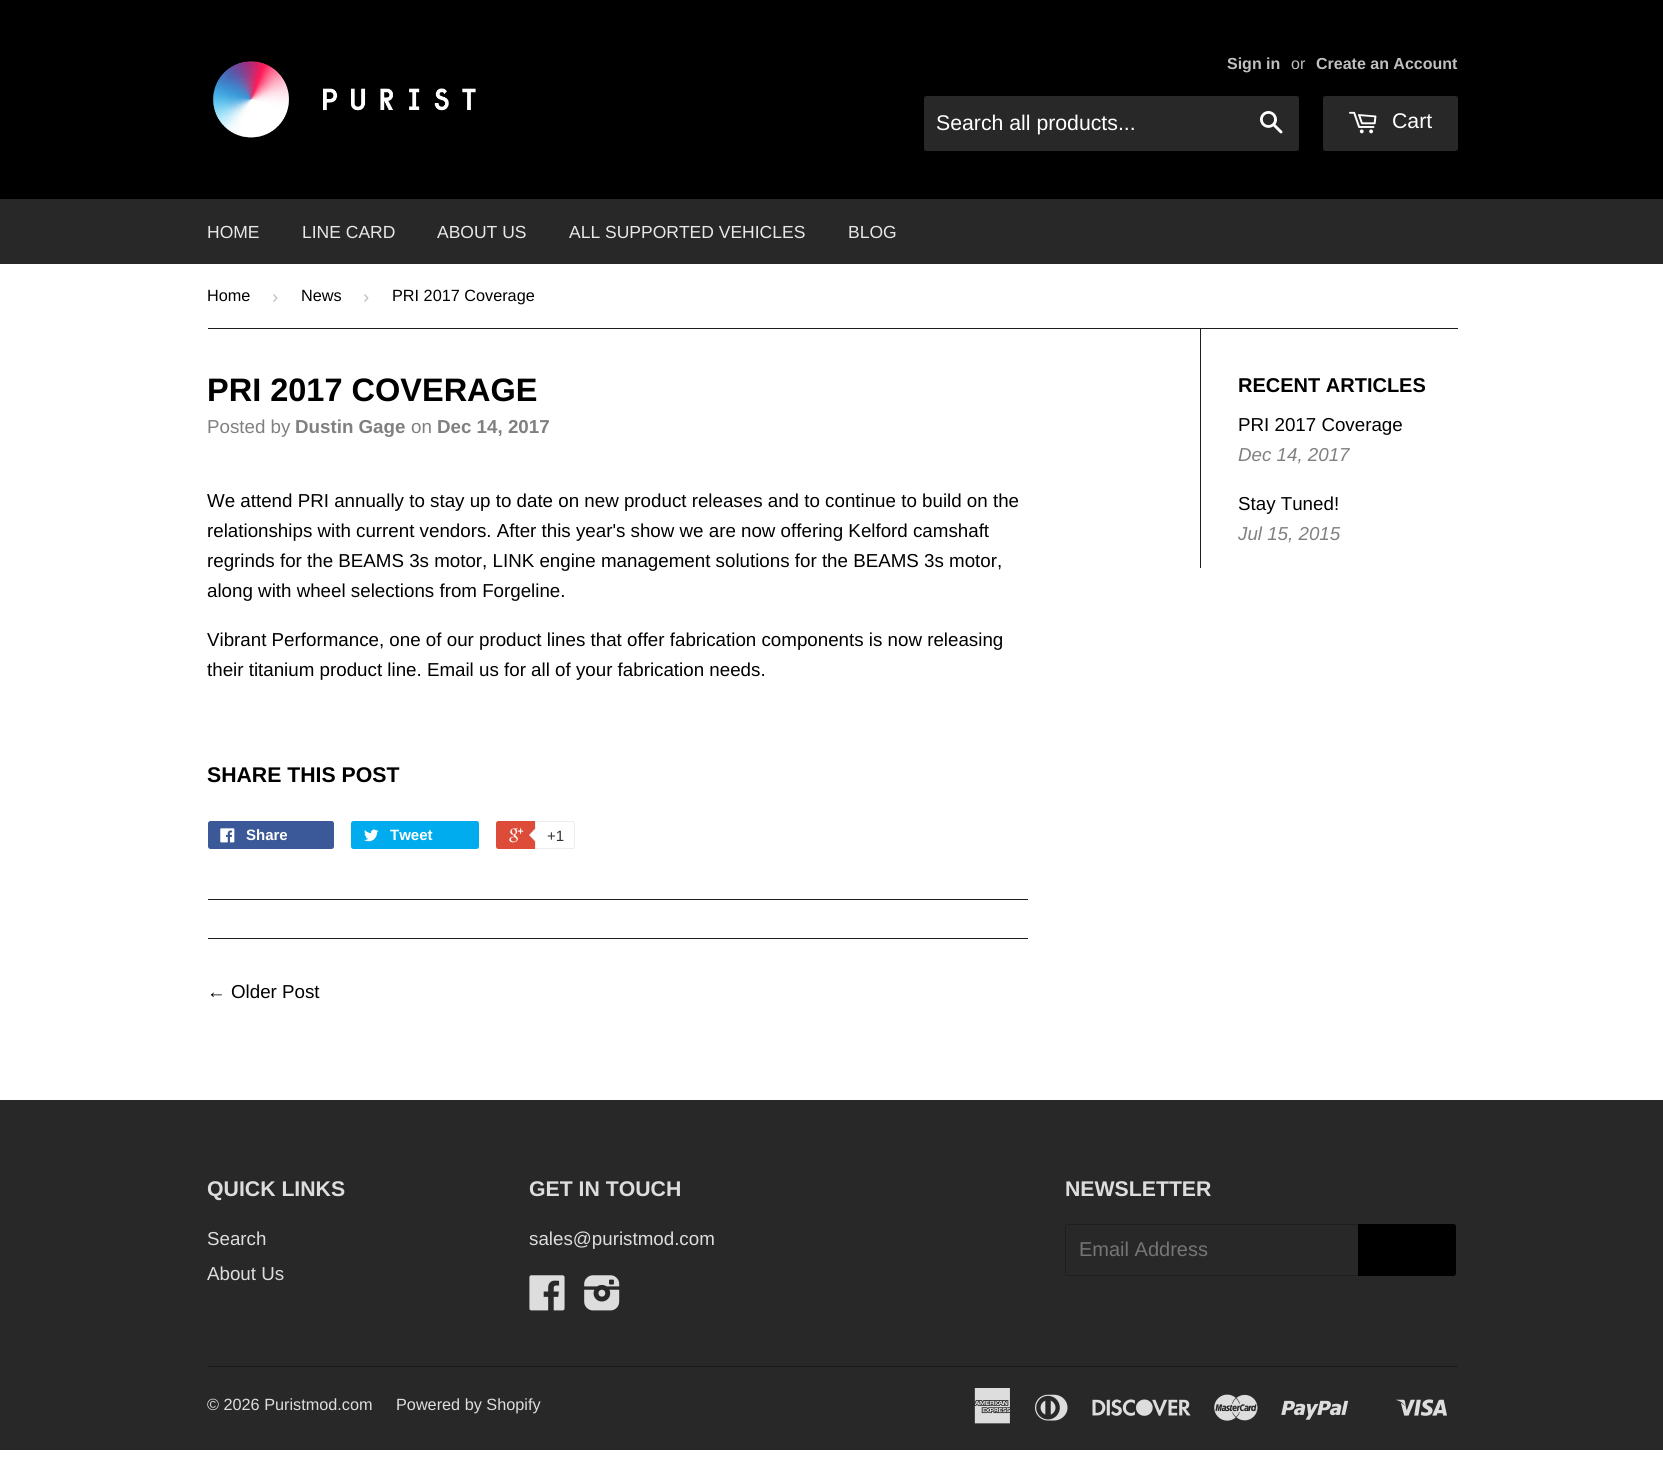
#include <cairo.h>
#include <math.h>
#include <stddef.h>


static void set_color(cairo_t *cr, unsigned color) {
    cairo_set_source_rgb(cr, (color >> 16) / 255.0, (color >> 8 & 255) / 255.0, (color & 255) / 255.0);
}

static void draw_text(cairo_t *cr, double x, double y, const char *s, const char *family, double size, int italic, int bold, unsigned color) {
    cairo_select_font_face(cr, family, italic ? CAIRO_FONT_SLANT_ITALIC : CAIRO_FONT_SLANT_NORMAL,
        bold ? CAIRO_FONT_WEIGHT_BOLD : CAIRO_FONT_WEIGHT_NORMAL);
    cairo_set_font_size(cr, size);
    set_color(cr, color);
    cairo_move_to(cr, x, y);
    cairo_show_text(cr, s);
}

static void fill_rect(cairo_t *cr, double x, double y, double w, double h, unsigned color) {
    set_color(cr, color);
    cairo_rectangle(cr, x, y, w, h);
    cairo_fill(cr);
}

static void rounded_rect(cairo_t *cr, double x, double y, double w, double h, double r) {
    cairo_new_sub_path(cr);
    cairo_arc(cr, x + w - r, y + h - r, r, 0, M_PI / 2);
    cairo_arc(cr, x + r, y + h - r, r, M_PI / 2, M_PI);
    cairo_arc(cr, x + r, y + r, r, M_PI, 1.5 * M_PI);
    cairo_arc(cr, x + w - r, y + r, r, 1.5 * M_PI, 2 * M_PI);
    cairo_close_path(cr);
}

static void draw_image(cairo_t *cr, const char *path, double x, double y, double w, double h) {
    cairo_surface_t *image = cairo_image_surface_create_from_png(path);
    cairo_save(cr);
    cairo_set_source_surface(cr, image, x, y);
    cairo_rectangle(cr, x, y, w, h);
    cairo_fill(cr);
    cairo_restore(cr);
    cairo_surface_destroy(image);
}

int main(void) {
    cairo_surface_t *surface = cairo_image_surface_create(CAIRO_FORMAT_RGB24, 1663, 1470);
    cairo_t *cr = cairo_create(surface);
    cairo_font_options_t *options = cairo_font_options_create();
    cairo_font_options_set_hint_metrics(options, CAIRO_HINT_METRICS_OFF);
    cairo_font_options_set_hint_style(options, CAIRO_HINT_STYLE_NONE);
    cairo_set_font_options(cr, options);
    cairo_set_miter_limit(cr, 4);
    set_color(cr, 0xFFFFFF);
    cairo_paint(cr);
    fill_rect(cr, 0, 0, 1663, 199, 0x000000);
    draw_image(cr, "assets/img1.png", 213, 61, 263, 77);
    draw_text(cr, 1227, 69, "Sign in", "Liberation Sans", 16, 0, 1, 0xBFBFBF);
    draw_text(cr, 1291, 69, "or", "Liberation Sans", 16, 0, 0, 0xBFBFBF);
    draw_text(cr, 1316, 69, "Create an Account", "Liberation Sans", 16, 0, 1, 0xBFBFBF);
    set_color(cr, 0x282828);
    rounded_rect(cr, 924, 96, 375, 55, 2.5);
    cairo_fill(cr);
    draw_text(cr, 936, 130, "Search all products...", "Liberation Sans", 21.25, 0, 0, 0xFFFFFF);
    draw_image(cr, "assets/img2.png", 1260, 111, 23, 23);
    set_color(cr, 0x282828);
    rounded_rect(cr, 1323, 96, 135, 55, 2.5);
    cairo_fill(cr);
    draw_image(cr, "assets/img3.png", 1349, 111, 28, 23);
    draw_text(cr, 1392, 128, "Cart", "Liberation Sans", 21.25, 0, 0, 0xFFFFFF);
    fill_rect(cr, 0, 199, 1663, 65, 0x282828);
    draw_text(cr, 207, 238, "HOME", "Liberation Sans", 17.5, 0, 0, 0xE8E8E8);
    draw_text(cr, 302, 238, "LINE CARD", "Liberation Sans", 17.5, 0, 0, 0xE8E8E8);
    draw_text(cr, 437, 238, "ABOUT US", "Liberation Sans", 17.5, 0, 0, 0xE8E8E8);
    draw_text(cr, 569, 238, "ALL SUPPORTED VEHICLES", "Liberation Sans", 17.5, 0, 0, 0xE8E8E8);
    draw_text(cr, 848, 238, "BLOG", "Liberation Sans", 17.5, 0, 0, 0xE8E8E8);
    fill_rect(cr, 208, 328, 1250, 1, 0x1E1E1E);
    draw_text(cr, 207, 301, "Home", "Liberation Sans", 16.25, 0, 0, 0x000000);
    draw_text(cr, 272, 303, "›", "Liberation Sans", 18.75, 0, 0, 0xBFBFBF);
    draw_text(cr, 301, 301, "News", "Liberation Sans", 16.25, 0, 0, 0x000000);
    draw_text(cr, 363, 303, "›", "Liberation Sans", 18.75, 0, 0, 0xBFBFBF);
    draw_text(cr, 392, 301, "PRI 2017 Coverage", "Liberation Sans", 16.25, 0, 0, 0x000000);
    draw_text(cr, 207, 401, "PRI 2017 COVERAGE", "Liberation Sans", 32.5, 0, 1, 0x000000);
    draw_text(cr, 207, 433, "Posted by", "Liberation Sans", 18.75, 0, 0, 0x808080);
    draw_text(cr, 295, 433, "Dustin Gage", "Liberation Sans", 18.75, 0, 1, 0x808080);
    draw_text(cr, 411, 433, "on", "Liberation Sans", 18.75, 0, 0, 0x808080);
    draw_text(cr, 437, 433, "Dec 14, 2017", "Liberation Sans", 18.75, 0, 1, 0x808080);
    draw_text(cr, 207, 507, "We attend PRI annually to stay up to date on new product releases and to continue to build on the", "Liberation Sans", 18.75, 0, 0, 0x000000);
    draw_text(cr, 207, 537, "relationships with current vendors. After this year's show we are now offering Kelford camshaft", "Liberation Sans", 18.75, 0, 0, 0x000000);
    draw_text(cr, 207, 567, "regrinds for the BEAMS 3s motor, LINK engine management solutions for the BEAMS 3s motor,", "Liberation Sans", 18.75, 0, 0, 0x000000);
    draw_text(cr, 207, 597, "along with wheel selections from Forgeline.", "Liberation Sans", 18.75, 0, 0, 0x000000);
    draw_text(cr, 207, 646, "Vibrant Performance, one of our product lines that offer fabrication components is now releasing", "Liberation Sans", 18.75, 0, 0, 0x000000);
    draw_text(cr, 207, 676, "their titanium product line. Email us for all of your fabrication needs.", "Liberation Sans", 18.75, 0, 0, 0x000000);
    draw_text(cr, 207, 782, "SHARE THIS POST", "Liberation Sans", 21.25, 0, 1, 0x000000);
    set_color(cr, 0x3B5998);
    rounded_rect(cr, 208, 821, 126, 28, 2.5);
    cairo_fill(cr);
    draw_image(cr, "assets/img4.png", 220, 828, 15, 15);
    draw_text(cr, 246, 840, "Share", "Liberation Sans", 15, 0, 1, 0xFFFFFF);
    set_color(cr, 0x00ACED);
    rounded_rect(cr, 351, 821, 128, 28, 2.5);
    cairo_fill(cr);
    draw_image(cr, "assets/img5.png", 364, 829, 15, 13);
    draw_text(cr, 390, 840, "Tweet", "Liberation Sans", 15, 0, 1, 0xFFFFFF);
    set_color(cr, 0xDD4B39);
    rounded_rect(cr, 496, 821, 77, 28, 2.5);
    cairo_fill(cr);
    draw_image(cr, "assets/img6.png", 509, 828, 15, 15);
    set_color(cr, 0xFFFFFF);
    cairo_new_path(cr);
    cairo_move_to(cr, 535.5, 821.5);
    cairo_line_to(cr, 572.5, 821.5);
    cairo_curve_to(cr, 573.5, 821.5, 574.5, 822.5, 574.5, 823.5);
    cairo_line_to(cr, 574.5, 846.5);
    cairo_curve_to(cr, 574.5, 847.5, 573.5, 848.5, 572.5, 848.5);
    cairo_line_to(cr, 535.5, 848.5);
    cairo_close_path(cr);
    cairo_fill_preserve(cr);
    set_color(cr, 0xECECEC);
    cairo_set_line_width(cr, 1);
    cairo_stroke(cr);
    cairo_new_path(cr);
    cairo_move_to(cr, 536, 827.5);
    cairo_line_to(cr, 536, 842.5);
    cairo_line_to(cr, 529, 835);
    cairo_close_path(cr);
    cairo_fill(cr);
    set_color(cr, 0xFFFFFF);
    cairo_new_path(cr);
    cairo_move_to(cr, 537.5, 827.5);
    cairo_line_to(cr, 537.5, 842.5);
    cairo_line_to(cr, 530, 835);
    cairo_close_path(cr);
    cairo_fill(cr);
    draw_text(cr, 547, 841, "+1", "Liberation Sans", 15, 0, 0, 0x333333);
    fill_rect(cr, 208, 899, 820, 1, 0x1E1E1E);
    fill_rect(cr, 208, 938, 820, 1, 0x1E1E1E);
    draw_text(cr, 207, 998, "← Older Post", "Liberation Sans", 18.75, 0, 0, 0x000000);
    fill_rect(cr, 1200, 329, 1, 239, 0x1E1E1E);
    draw_text(cr, 1238, 392, "RECENT ARTICLES", "Liberation Sans", 20, 0, 1, 0x000000);
    draw_text(cr, 1238, 431, "PRI 2017 Coverage", "Liberation Sans", 18.75, 0, 0, 0x000000);
    draw_text(cr, 1238, 461, "Dec 14, 2017", "Liberation Sans", 18.75, 1, 0, 0x808080);
    draw_text(cr, 1238, 510, "Stay Tuned!", "Liberation Sans", 18.75, 0, 0, 0x000000);
    draw_text(cr, 1238, 540, "Jul 15, 2015", "Liberation Sans", 18.75, 1, 0, 0x808080);
    fill_rect(cr, 0, 1100, 1663, 350, 0x282828);
    draw_text(cr, 207, 1196, "QUICK LINKS", "Liberation Sans", 21.25, 0, 1, 0xDDDDDD);
    draw_text(cr, 207, 1245, "Search", "Liberation Sans", 18.75, 0, 0, 0xDDDDDD);
    draw_text(cr, 207, 1280, "About Us", "Liberation Sans", 18.75, 0, 0, 0xDDDDDD);
    draw_text(cr, 529, 1196, "GET IN TOUCH", "Liberation Sans", 21.25, 0, 1, 0xDDDDDD);
    draw_text(cr, 529, 1245, "sales@puristmod.com", "Liberation Sans", 18.75, 0, 0, 0xDDDDDD);
    draw_image(cr, "assets/img7.png", 529, 1275, 36, 36);
    draw_image(cr, "assets/img8.png", 584, 1275, 36, 36);
    draw_text(cr, 1065, 1196, "NEWSLETTER", "Liberation Sans", 21.25, 0, 1, 0xDDDDDD);
    fill_rect(cr, 1066, 1224, 292, 1, 0x1E1E1E);
    fill_rect(cr, 1066, 1275, 292, 1, 0x1E1E1E);
    fill_rect(cr, 1065, 1225, 1, 50, 0x1E1E1E);
    draw_text(cr, 1079, 1256, "Email Address", "Liberation Sans", 20, 0, 0, 0x757575);
    set_color(cr, 0x000000);
    cairo_new_path(cr);
    cairo_move_to(cr, 1358, 1224);
    cairo_line_to(cr, 1453.5, 1224);
    cairo_curve_to(cr, 1455, 1224, 1456, 1225, 1456, 1226.5);
    cairo_line_to(cr, 1456, 1273.5);
    cairo_curve_to(cr, 1456, 1275, 1455, 1276, 1453.5, 1276);
    cairo_line_to(cr, 1358, 1276);
    cairo_close_path(cr);
    cairo_fill(cr);
    fill_rect(cr, 208, 1366, 1250, 1, 0x1B1B1B);
    draw_text(cr, 207, 1410, "© 2026 Puristmod.com", "Liberation Sans", 16.25, 0, 0, 0xDDDDDD);
    draw_text(cr, 396, 1410, "Powered by Shopify", "Liberation Sans", 16.25, 0, 0, 0xDDDDDD);
    draw_image(cr, "assets/img9.png", 974, 1388, 37, 36);
    draw_image(cr, "assets/img10.png", 1035, 1394, 33, 27);
    draw_image(cr, "assets/img11.png", 1092, 1399, 99, 17);
    draw_image(cr, "assets/img12.png", 1214, 1394, 44, 27);
    draw_image(cr, "assets/img13.png", 1281, 1400, 68, 20);
    draw_image(cr, "assets/img14.png", 1396, 1399, 51, 17);
    cairo_surface_write_to_png(surface, "output.png");
    cairo_font_options_destroy(options);
    cairo_destroy(cr);
    cairo_surface_destroy(surface);
    return 0;
}
